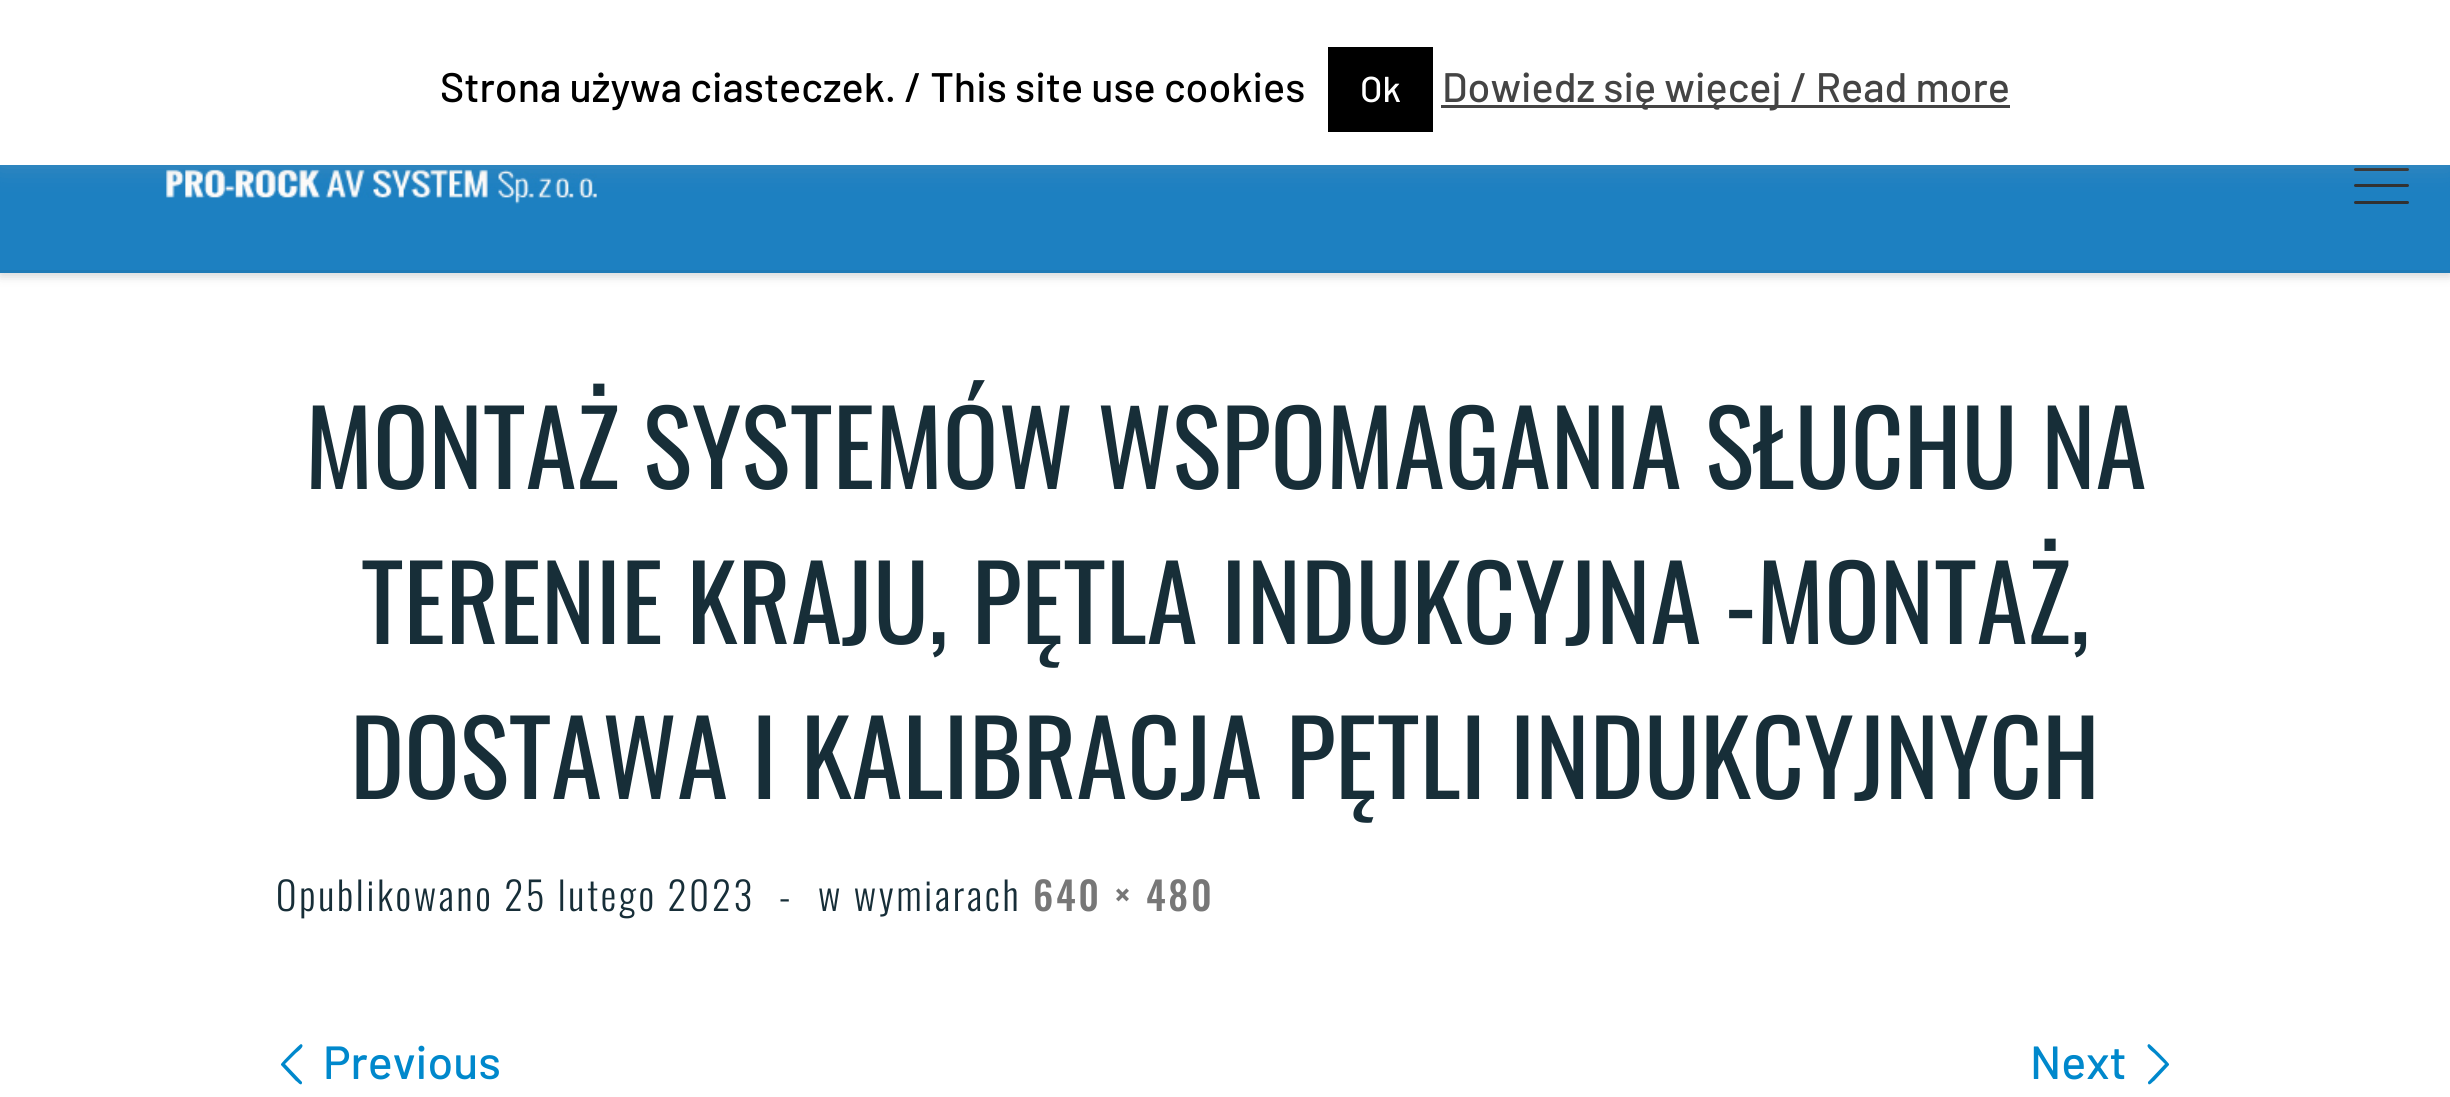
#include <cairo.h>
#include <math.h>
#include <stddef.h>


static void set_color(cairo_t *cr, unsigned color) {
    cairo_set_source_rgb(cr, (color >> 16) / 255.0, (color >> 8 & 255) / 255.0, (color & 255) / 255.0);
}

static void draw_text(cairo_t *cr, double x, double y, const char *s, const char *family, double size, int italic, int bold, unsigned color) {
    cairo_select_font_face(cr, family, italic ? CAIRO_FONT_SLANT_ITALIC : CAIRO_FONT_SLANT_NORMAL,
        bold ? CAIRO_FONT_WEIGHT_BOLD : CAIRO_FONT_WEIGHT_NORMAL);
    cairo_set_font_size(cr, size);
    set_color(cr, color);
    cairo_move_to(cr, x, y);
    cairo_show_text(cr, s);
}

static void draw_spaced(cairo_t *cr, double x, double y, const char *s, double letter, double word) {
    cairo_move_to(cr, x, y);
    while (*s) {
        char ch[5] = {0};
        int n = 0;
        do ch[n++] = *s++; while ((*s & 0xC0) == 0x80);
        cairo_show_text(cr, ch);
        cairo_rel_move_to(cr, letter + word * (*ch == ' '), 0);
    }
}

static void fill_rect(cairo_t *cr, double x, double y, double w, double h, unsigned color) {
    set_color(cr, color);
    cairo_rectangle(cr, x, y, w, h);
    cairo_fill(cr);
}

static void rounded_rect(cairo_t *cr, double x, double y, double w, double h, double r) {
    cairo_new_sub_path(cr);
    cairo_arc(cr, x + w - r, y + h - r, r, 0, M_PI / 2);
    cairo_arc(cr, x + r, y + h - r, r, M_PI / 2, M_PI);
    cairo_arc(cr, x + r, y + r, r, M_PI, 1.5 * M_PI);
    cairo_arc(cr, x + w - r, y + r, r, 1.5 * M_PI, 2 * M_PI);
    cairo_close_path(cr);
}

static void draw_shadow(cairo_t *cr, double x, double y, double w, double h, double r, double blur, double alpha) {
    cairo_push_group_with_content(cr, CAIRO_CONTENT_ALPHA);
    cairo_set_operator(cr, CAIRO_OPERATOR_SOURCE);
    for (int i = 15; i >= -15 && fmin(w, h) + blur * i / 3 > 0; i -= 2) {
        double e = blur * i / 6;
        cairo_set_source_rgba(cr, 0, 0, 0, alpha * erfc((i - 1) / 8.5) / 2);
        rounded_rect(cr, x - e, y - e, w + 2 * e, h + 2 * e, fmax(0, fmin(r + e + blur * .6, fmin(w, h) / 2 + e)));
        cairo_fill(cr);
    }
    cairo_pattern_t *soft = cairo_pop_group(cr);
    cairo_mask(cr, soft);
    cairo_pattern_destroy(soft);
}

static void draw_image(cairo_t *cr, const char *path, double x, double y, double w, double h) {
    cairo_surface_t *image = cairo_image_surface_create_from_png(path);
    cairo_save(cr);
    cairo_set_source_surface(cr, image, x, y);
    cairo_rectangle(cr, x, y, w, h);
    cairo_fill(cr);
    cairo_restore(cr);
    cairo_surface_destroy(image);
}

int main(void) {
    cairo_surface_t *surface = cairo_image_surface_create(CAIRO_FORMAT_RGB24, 2450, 1097);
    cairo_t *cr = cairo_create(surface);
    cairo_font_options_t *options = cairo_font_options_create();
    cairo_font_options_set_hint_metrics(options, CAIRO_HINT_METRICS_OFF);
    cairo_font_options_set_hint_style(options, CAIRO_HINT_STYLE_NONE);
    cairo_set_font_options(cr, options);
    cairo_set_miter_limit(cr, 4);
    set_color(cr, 0xFFFFFF);
    cairo_paint(cr);
    set_color(cr, 0x666666);
    draw_shadow(cr, 0, 6, 2450, 272, 0, 3, 0.08);
    set_color(cr, 0x000000);
    draw_shadow(cr, 0, 96, 2450, 176, 0, 7, 0.2);
    fill_rect(cr, 0, 165, 2450, 105, 0x1D80C1);
    draw_image(cr, "assets/img1.png", 166, 169, 431, 35);
    set_color(cr, 0x313131);
    rounded_rect(cr, 2354, 168, 55, 3, 1.5);
    cairo_fill(cr);
    rounded_rect(cr, 2354, 184, 55, 3, 1.5);
    cairo_fill(cr);
    rounded_rect(cr, 2354, 201, 55, 3, 1.5);
    cairo_fill(cr);
    set_color(cr, 0xACABAB);
    draw_shadow(cr, 0, -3, 2450, 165, 0, 14, 0.3);
    fill_rect(cr, 0, 0, 2450, 165, 0xFFFFFF);
    draw_text(cr, 440, 102, "Strona używa ciasteczek. / This site use cookies", "Barlow Medium", 41.25, 0, 0, 0x000000);
    fill_rect(cr, 1328, 47, 105, 85, 0x000000);
    draw_text(cr, 1360, 102, "Ok", "Barlow Medium", 36, 0, 0, 0xFFFFFF);
    fill_rect(cr, 1441, 105, 569, 3, 0x444444);
    draw_text(cr, 1442, 102, "Dowiedz się więcej / Read more", "Barlow Medium", 41.25, 0, 0, 0x444444);
    fill_rect(cr, 0, 270, 2450, 3, 0x1F7AB6);
    draw_text(cr, 305, 489, "MONTAŻ SYSTEMÓW WSPOMAGANIA SŁUCHU NA", "Oswald", 103.1, 0, 0, 0x172E38);
    draw_text(cr, 361, 644, "TERENIE KRAJU, PĘTLA INDUKCYJNA -MONTAŻ,", "Oswald", 103.1, 0, 0, 0x172E38);
    draw_text(cr, 350, 799, "DOSTAWA I KALIBRACJA PĘTLI INDUKCYJNYCH", "Oswald", 103.1, 0, 0, 0x172E38);
    cairo_select_font_face(cr, "Oswald Light", CAIRO_FONT_SLANT_NORMAL, CAIRO_FONT_WEIGHT_NORMAL);
    cairo_set_font_size(cr, 38.9);
    draw_spaced(cr, 276, 911, "Opublikowano 25 lutego 2023", 2.75, 0);
    draw_spaced(cr, 779, 911, "-", 2.75, 0);
    draw_spaced(cr, 818, 911, "w wymiarach", 2.75, 0);
    cairo_select_font_face(cr, "Oswald Medium", CAIRO_FONT_SLANT_NORMAL, CAIRO_FONT_WEIGHT_NORMAL);
    set_color(cr, 0x777777);
    draw_spaced(cr, 1033, 911, "640 × 480", 2.75, 0);
    set_color(cr, 0x0088CC);
    cairo_new_path(cr);
    cairo_move_to(cr, 302, 1082);
    cairo_line_to(cr, 302, 1083);
    cairo_curve_to(cr, 301, 1087, 297, 1081, 296, 1081);
    cairo_line_to(cr, 281, 1065);
    cairo_line_to(cr, 281, 1064);
    cairo_curve_to(cr, 283, 1061, 300, 1044, 301, 1044);
    cairo_curve_to(cr, 306, 1046, 297, 1052, 296, 1053);
    cairo_line_to(cr, 285, 1064);
    cairo_close_path(cr);
    cairo_fill(cr);
    draw_text(cr, 323, 1079, "Previous", "Barlow Medium", 46.5, 0, 0, 0x0088CC);
    draw_text(cr, 2030, 1079, "Next", "Barlow Medium", 46.5, 0, 0, 0x0088CC);
    cairo_new_path(cr);
    cairo_move_to(cr, 2148, 1082);
    cairo_line_to(cr, 2165, 1064);
    cairo_line_to(cr, 2154, 1053);
    cairo_curve_to(cr, 2153, 1052, 2144, 1046, 2149, 1044);
    cairo_curve_to(cr, 2150, 1044, 2167, 1061, 2169, 1064);
    cairo_line_to(cr, 2169, 1065);
    cairo_line_to(cr, 2154, 1081);
    cairo_curve_to(cr, 2153, 1081, 2149, 1087, 2148, 1083);
    cairo_close_path(cr);
    cairo_fill(cr);
    cairo_surface_write_to_png(surface, "output.png");
    cairo_font_options_destroy(options);
    cairo_destroy(cr);
    cairo_surface_destroy(surface);
    return 0;
}
